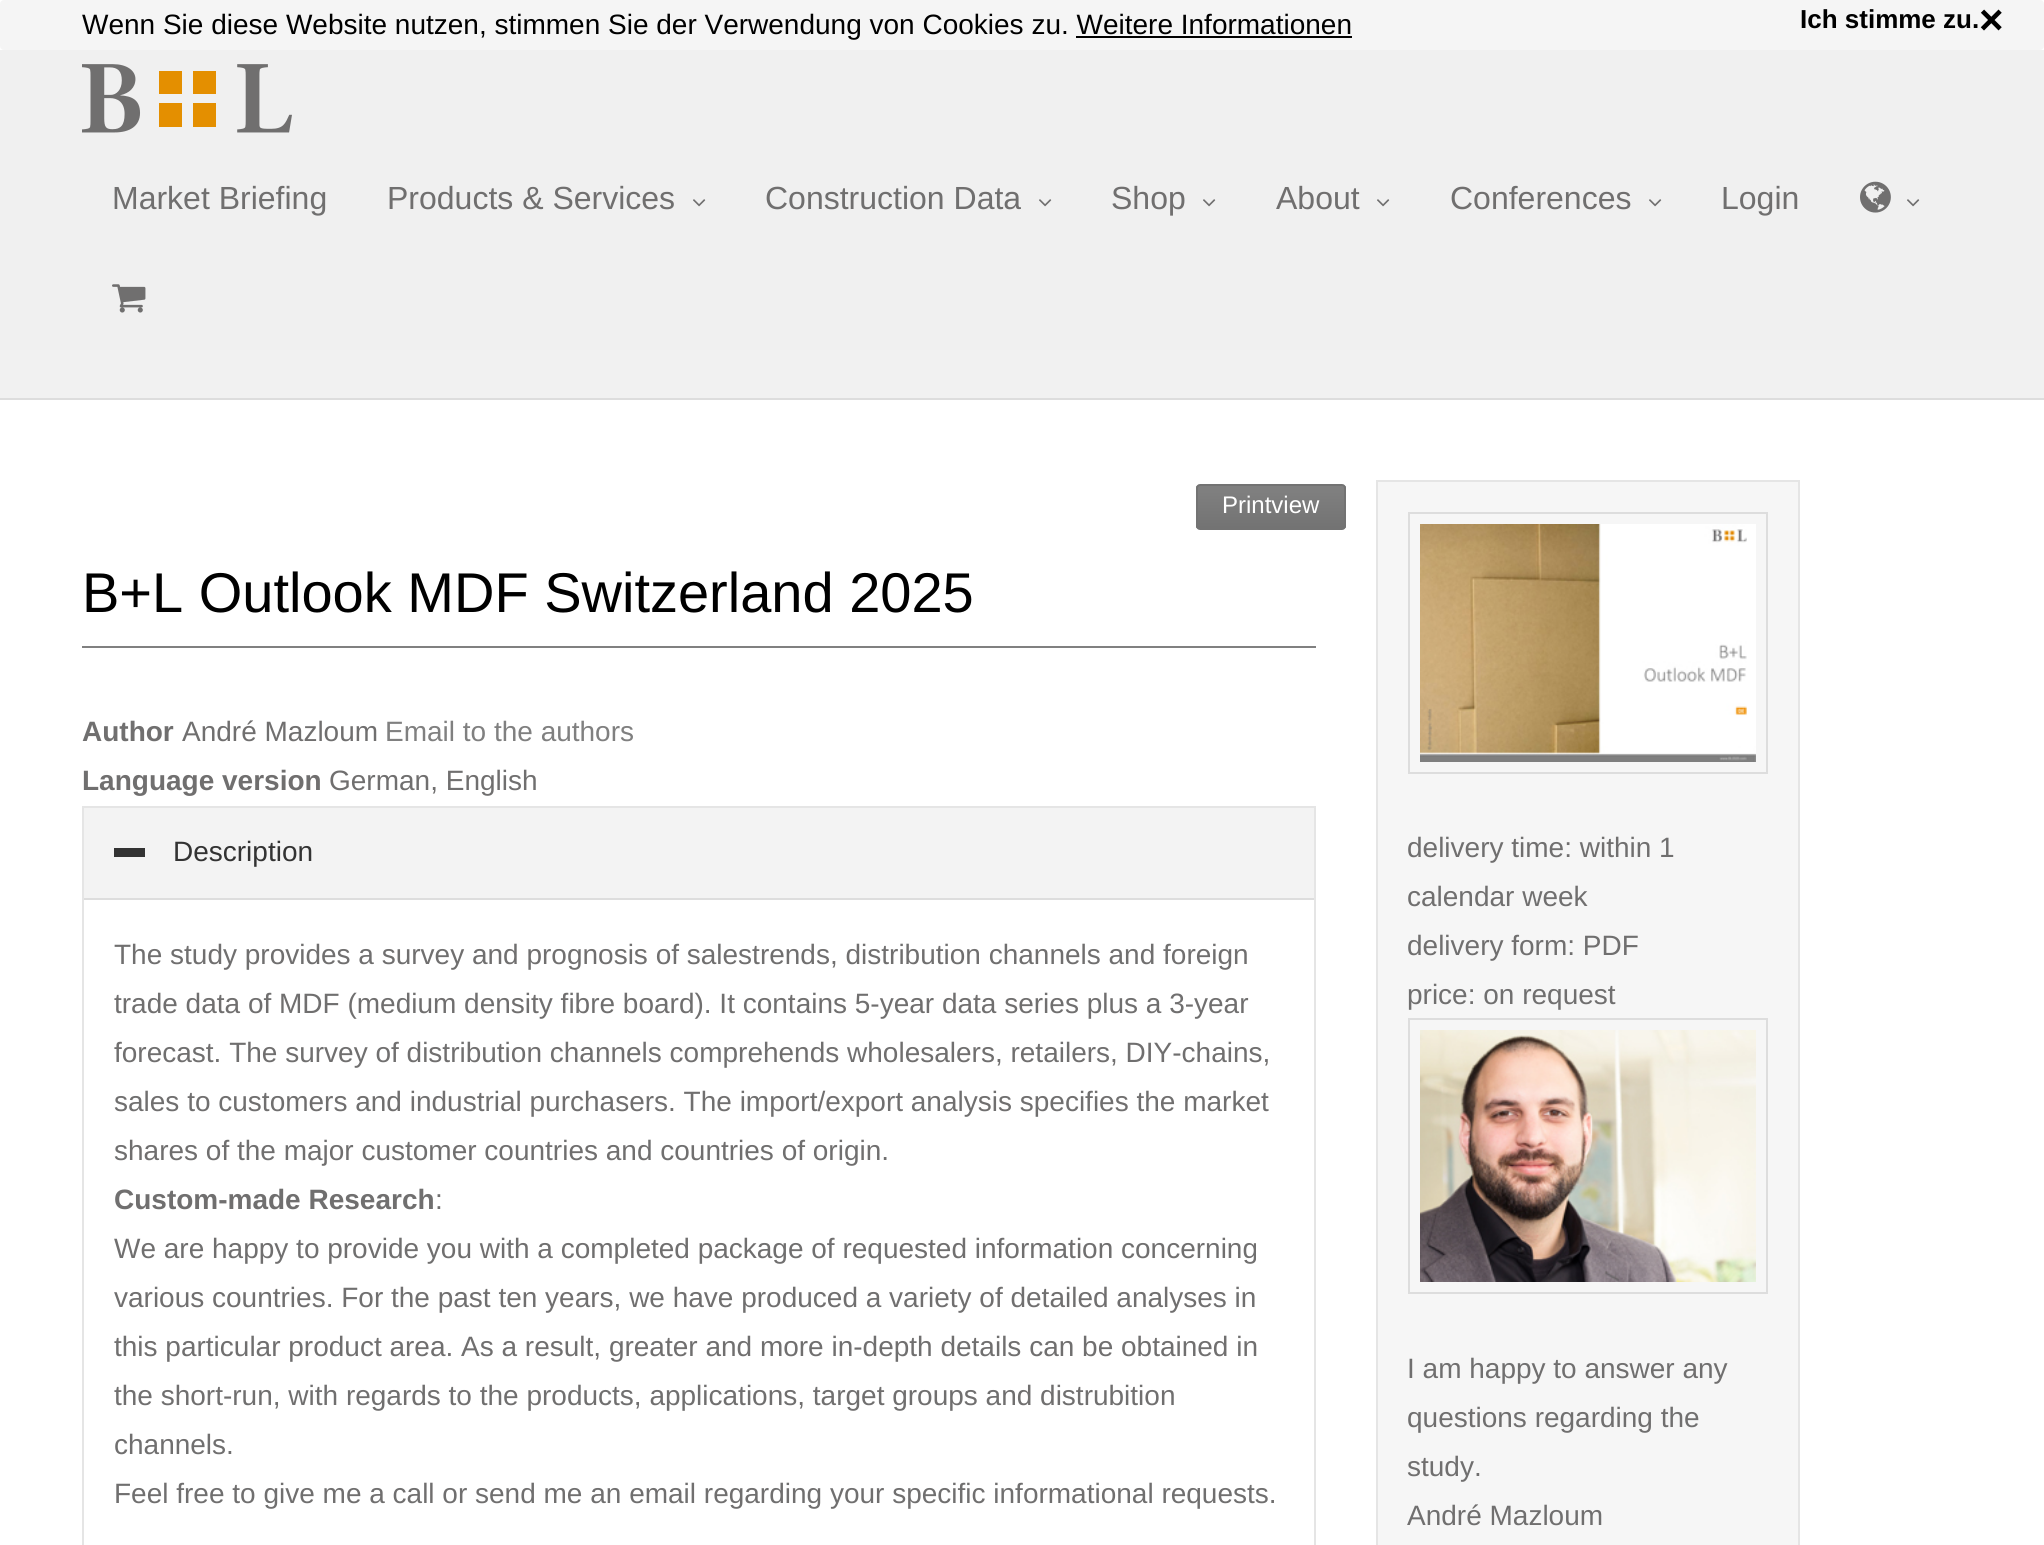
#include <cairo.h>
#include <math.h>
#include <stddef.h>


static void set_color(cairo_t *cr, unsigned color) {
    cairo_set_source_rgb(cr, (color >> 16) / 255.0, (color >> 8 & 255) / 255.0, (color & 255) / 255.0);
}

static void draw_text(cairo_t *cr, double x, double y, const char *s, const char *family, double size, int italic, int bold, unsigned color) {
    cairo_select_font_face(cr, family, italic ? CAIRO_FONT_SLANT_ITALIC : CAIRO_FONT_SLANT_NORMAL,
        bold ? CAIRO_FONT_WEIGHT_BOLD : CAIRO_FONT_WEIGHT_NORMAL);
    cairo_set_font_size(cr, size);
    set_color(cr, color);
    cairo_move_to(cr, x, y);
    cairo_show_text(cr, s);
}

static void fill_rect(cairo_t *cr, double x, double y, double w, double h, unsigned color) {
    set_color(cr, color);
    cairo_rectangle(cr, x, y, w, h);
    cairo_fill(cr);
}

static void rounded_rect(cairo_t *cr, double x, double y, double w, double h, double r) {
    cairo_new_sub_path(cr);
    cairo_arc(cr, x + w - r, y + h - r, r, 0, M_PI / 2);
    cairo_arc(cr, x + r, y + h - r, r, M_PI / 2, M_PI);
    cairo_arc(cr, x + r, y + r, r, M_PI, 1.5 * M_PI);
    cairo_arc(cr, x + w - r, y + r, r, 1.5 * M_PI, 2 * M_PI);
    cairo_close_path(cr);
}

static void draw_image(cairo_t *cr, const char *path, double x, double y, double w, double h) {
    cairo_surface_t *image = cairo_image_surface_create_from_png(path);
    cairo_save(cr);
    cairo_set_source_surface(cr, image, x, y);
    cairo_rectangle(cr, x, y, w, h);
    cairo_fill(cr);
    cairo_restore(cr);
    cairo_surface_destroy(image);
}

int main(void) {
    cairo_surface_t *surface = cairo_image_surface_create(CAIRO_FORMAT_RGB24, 2044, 1545);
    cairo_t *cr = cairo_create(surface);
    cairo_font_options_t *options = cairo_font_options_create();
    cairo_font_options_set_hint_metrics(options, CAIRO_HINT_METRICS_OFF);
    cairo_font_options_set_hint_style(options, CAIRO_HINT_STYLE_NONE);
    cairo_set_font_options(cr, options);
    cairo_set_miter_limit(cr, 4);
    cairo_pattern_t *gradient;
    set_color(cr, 0xFFFFFF);
    cairo_paint(cr);
    set_color(cr, 0xF5F5F5);
    rounded_rect(cr, 0, 0, 2044, 50, 4);
    cairo_fill(cr);
    draw_text(cr, 82, 34, "Wenn Sie diese Website nutzen, stimmen Sie der Verwendung von Cookies zu. Weitere Informationen", "Liberation Sans", 28, 0, 0, 0x000000);
    fill_rect(cr, 1076, 36, 276, 2, 0x000000);
    draw_text(cr, 1800, 28, "Ich stimme zu.", "Liberation Sans", 26, 0, 1, 0x000000);
    draw_text(cr, 1979, 34, "×", "Liberation Sans", 42, 0, 1, 0x000000);
    fill_rect(cr, 0, 50, 2044, 300, 0xF0F0F0);
    draw_image(cr, "assets/img1.png", 82, 64, 210, 69);
    draw_text(cr, 112, 209, "Market Briefing", "Liberation Sans", 32, 0, 0, 0x706F6F);
    draw_text(cr, 387, 209, "Products & Services", "Liberation Sans", 32, 0, 0, 0x706F6F);
    draw_image(cr, "assets/img2.png", 693, 199, 13, 8);
    draw_text(cr, 765, 209, "Construction Data", "Liberation Sans", 32, 0, 0, 0x706F6F);
    draw_image(cr, "assets/img2.png", 1039, 199, 13, 8);
    draw_text(cr, 1111, 209, "Shop", "Liberation Sans", 32, 0, 0, 0x706F6F);
    draw_image(cr, "assets/img2.png", 1203, 199, 13, 8);
    draw_text(cr, 1276, 209, "About", "Liberation Sans", 32, 0, 0, 0x706F6F);
    draw_image(cr, "assets/img2.png", 1377, 199, 13, 8);
    draw_text(cr, 1450, 209, "Conferences", "Liberation Sans", 32, 0, 0, 0x706F6F);
    draw_image(cr, "assets/img2.png", 1649, 199, 13, 8);
    draw_text(cr, 1721, 209, "Login", "Liberation Sans", 32, 0, 0, 0x706F6F);
    draw_image(cr, "assets/img3.png", 1860, 181, 31, 32);
    draw_image(cr, "assets/img2.png", 1907, 199, 13, 8);
    draw_image(cr, "assets/img4.png", 112, 284, 34, 29);
    fill_rect(cr, 0, 350, 2044, 48, 0xF1F1F1);
    fill_rect(cr, 0, 398, 2044, 2, 0xDDDDDD);
    cairo_save(cr);
    rounded_rect(cr, 1196, 484, 150, 46, 4);
    cairo_clip(cr);
    gradient = cairo_pattern_create_linear(1271, 486, 1271, 528);
    cairo_pattern_add_color_stop_rgba(gradient, 0.05, 0.502, 0.502, 0.502, 1);
    cairo_pattern_add_color_stop_rgba(gradient, 1, 0.451, 0.451, 0.451, 1);
    cairo_set_source(cr, gradient);
    cairo_pattern_destroy(gradient);
    cairo_rectangle(cr, 1196, 486, 150, 42);
    cairo_fill(cr);
    cairo_restore(cr);
    rounded_rect(cr, 1197, 485, 148, 44, 3);
    set_color(cr, 0x737373);
    cairo_stroke(cr);
    draw_text(cr, 1222, 513, "Printview", "Liberation Sans", 24, 0, 0, 0xFFFFFF);
    fill_rect(cr, 82, 646, 1234, 2, 0x808080);
    draw_text(cr, 82, 612, "B+L Outlook MDF Switzerland 2025", "Liberation Sans", 56, 0, 0, 0x000000);
    draw_text(cr, 82, 741, "Author", "Liberation Sans", 28, 0, 1, 0x706F6F);
    draw_text(cr, 182, 741, "André Mazloum", "Liberation Sans", 28, 0, 0, 0x706F6F);
    draw_text(cr, 385, 741, "Email to the authors", "Liberation Sans", 28, 0, 0, 0x808080);
    draw_text(cr, 82, 790, "Language version", "Liberation Sans", 28, 0, 1, 0x706F6F);
    draw_text(cr, 329, 790, "German, English", "Liberation Sans", 28, 0, 0, 0x706F6F);
    cairo_rectangle(cr, 83, 807, 1232, 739);
    set_color(cr, 0xE5E5E5);
    cairo_stroke(cr);
    fill_rect(cr, 84, 808, 1230, 90, 0xF3F3F3);
    fill_rect(cr, 114, 848, 31, 9, 0x333333);
    draw_text(cr, 173, 861, "Description", "Liberation Sans", 28, 0, 0, 0x333333);
    fill_rect(cr, 84, 898, 1230, 2, 0xDDDDDD);
    draw_text(cr, 114, 964, "The study provides a survey and prognosis of salestrends, distribution channels and foreign", "Liberation Sans", 28, 0, 0, 0x706F6F);
    draw_text(cr, 114, 1013, "trade data of MDF (medium density fibre board). It contains 5-year data series plus a 3-year", "Liberation Sans", 28, 0, 0, 0x706F6F);
    draw_text(cr, 114, 1062, "forecast. The survey of distribution channels comprehends wholesalers, retailers, DIY-chains,", "Liberation Sans", 28, 0, 0, 0x706F6F);
    draw_text(cr, 114, 1111, "sales to customers and industrial purchasers. The import/export analysis specifies the market", "Liberation Sans", 28, 0, 0, 0x706F6F);
    draw_text(cr, 114, 1160, "shares of the major customer countries and countries of origin.", "Liberation Sans", 28, 0, 0, 0x706F6F);
    draw_text(cr, 114, 1209, "Custom-made Research", "Liberation Sans", 28, 0, 1, 0x706F6F);
    draw_text(cr, 435, 1209, ":", "Liberation Sans", 28, 0, 0, 0x706F6F);
    draw_text(cr, 114, 1258, "We are happy to provide you with a completed package of requested information concerning", "Liberation Sans", 28, 0, 0, 0x706F6F);
    draw_text(cr, 114, 1307, "various countries. For the past ten years, we have produced a variety of detailed analyses in", "Liberation Sans", 28, 0, 0, 0x706F6F);
    draw_text(cr, 114, 1356, "this particular product area. As a result, greater and more in-depth details can be obtained in", "Liberation Sans", 28, 0, 0, 0x706F6F);
    draw_text(cr, 114, 1405, "the short-run, with regards to the products, applications, target groups and distrubition", "Liberation Sans", 28, 0, 0, 0x706F6F);
    draw_text(cr, 114, 1454, "channels.", "Liberation Sans", 28, 0, 0, 0x706F6F);
    draw_text(cr, 114, 1503, "Feel free to give me a call or send me an email regarding your specific informational requests.", "Liberation Sans", 28, 0, 0, 0x706F6F);
    set_color(cr, 0xF6F6F6);
    cairo_rectangle(cr, 1377, 481, 422, 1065);
    cairo_fill_preserve(cr);
    set_color(cr, 0xE5E5E5);
    cairo_stroke(cr);
    cairo_rectangle(cr, 1409, 513, 358, 260);
    set_color(cr, 0xDDDDDD);
    cairo_stroke(cr);
    draw_image(cr, "assets/img5.png", 1420, 524, 336, 238);
    draw_text(cr, 1407, 857, "delivery time: within 1", "Liberation Sans", 28, 0, 0, 0x706F6F);
    draw_text(cr, 1407, 906, "calendar week", "Liberation Sans", 28, 0, 0, 0x706F6F);
    draw_text(cr, 1407, 955, "delivery form: PDF", "Liberation Sans", 28, 0, 0, 0x706F6F);
    draw_text(cr, 1407, 1004, "price: on request", "Liberation Sans", 28, 0, 0, 0x706F6F);
    cairo_rectangle(cr, 1409, 1019, 358, 274);
    set_color(cr, 0xDDDDDD);
    cairo_stroke(cr);
    draw_image(cr, "assets/img6.png", 1420, 1030, 336, 252);
    draw_text(cr, 1407, 1378, "I am happy to answer any", "Liberation Sans", 28, 0, 0, 0x706F6F);
    draw_text(cr, 1407, 1427, "questions regarding the", "Liberation Sans", 28, 0, 0, 0x706F6F);
    draw_text(cr, 1407, 1476, "study.", "Liberation Sans", 28, 0, 0, 0x706F6F);
    draw_text(cr, 1407, 1525, "André Mazloum", "Liberation Sans", 28, 0, 0, 0x706F6F);
    cairo_surface_write_to_png(surface, "output.png");
    cairo_font_options_destroy(options);
    cairo_destroy(cr);
    cairo_surface_destroy(surface);
    return 0;
}
